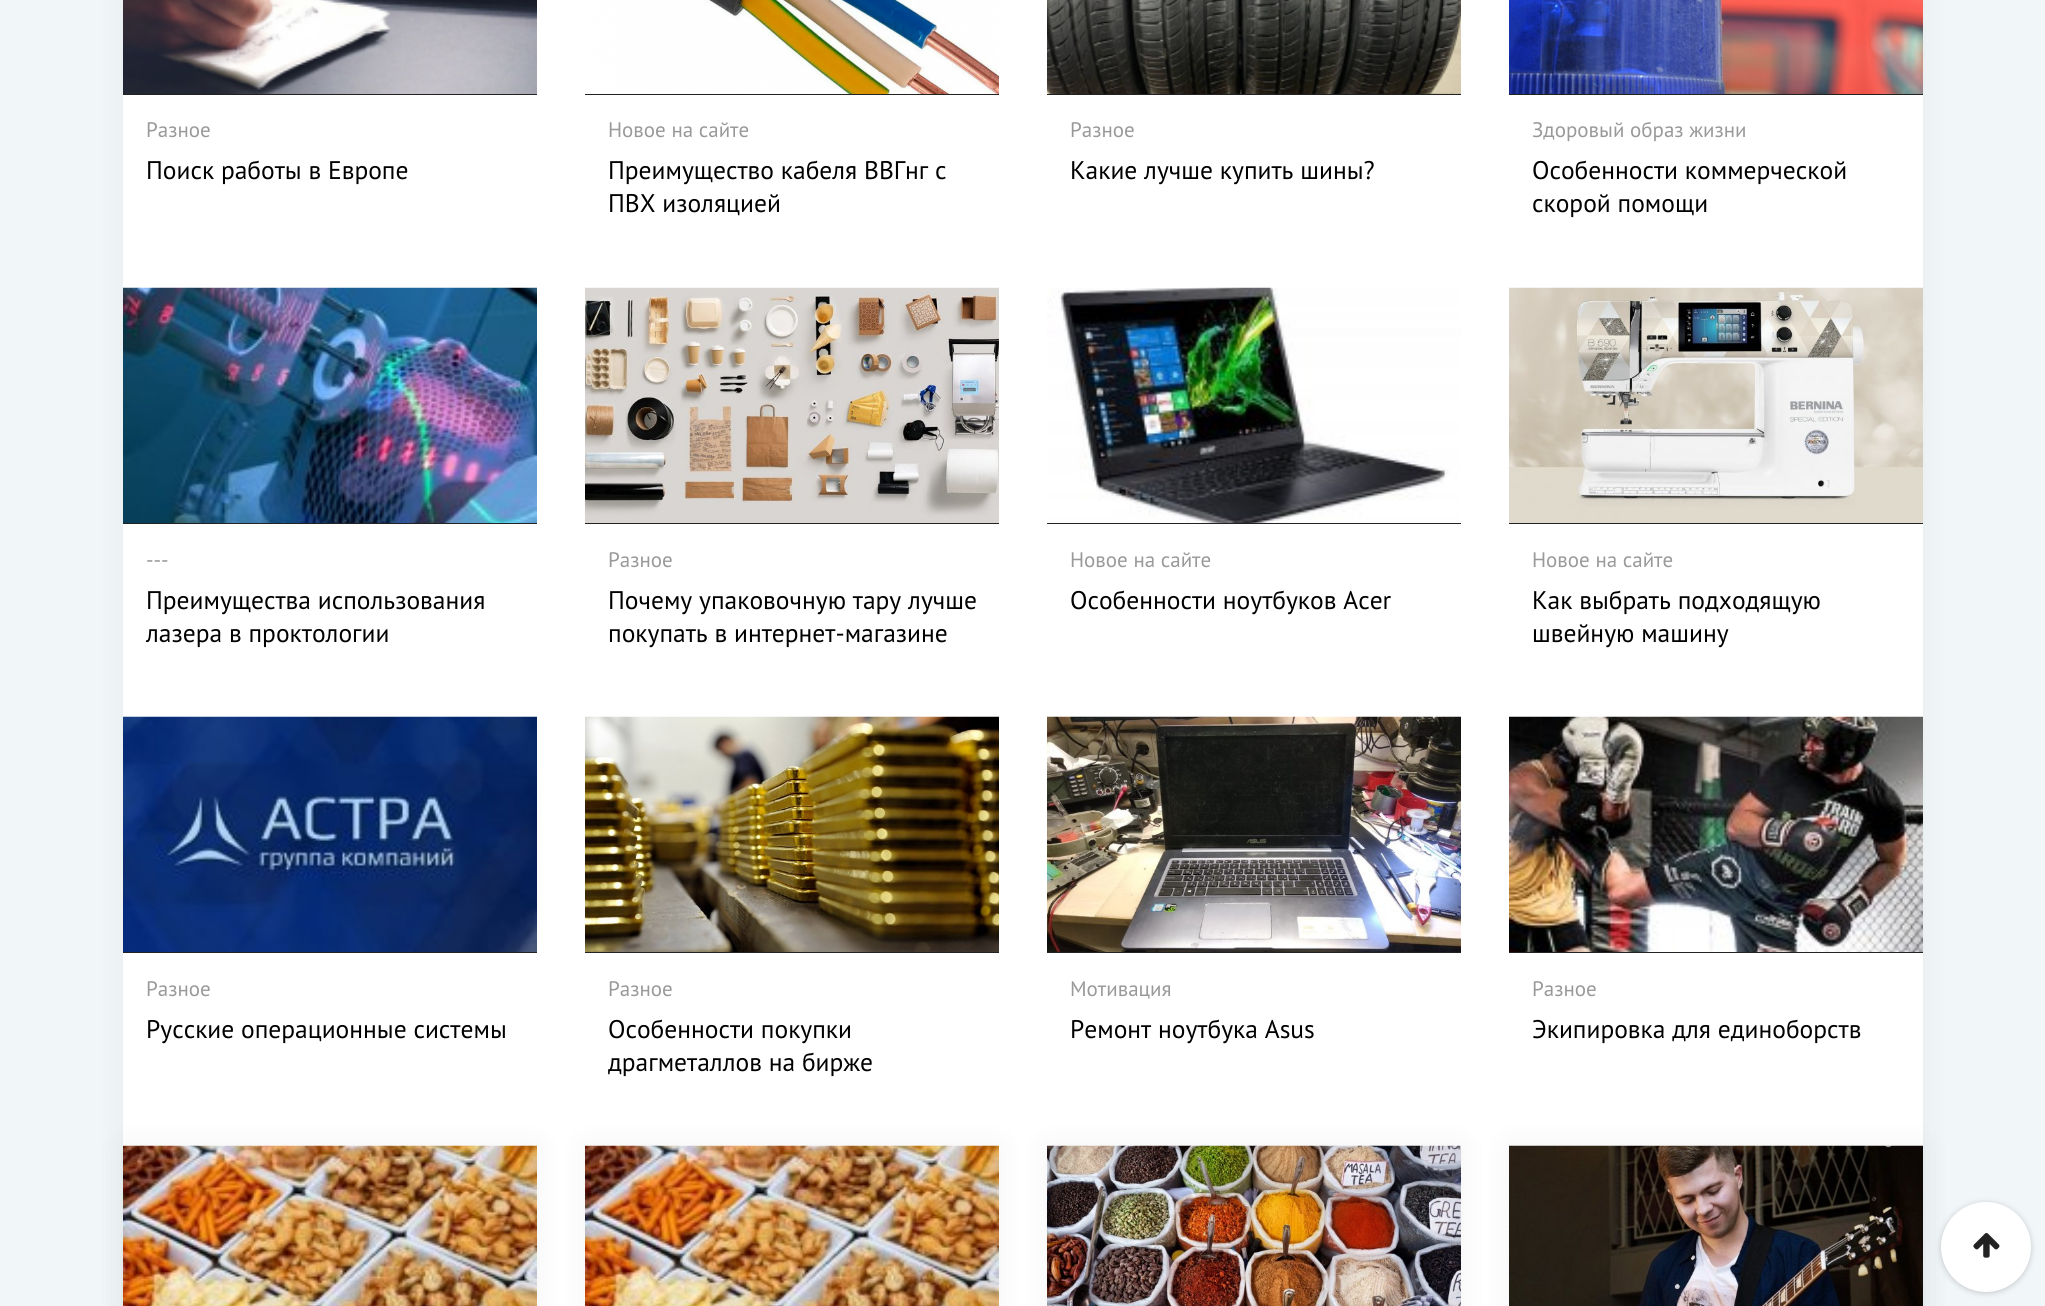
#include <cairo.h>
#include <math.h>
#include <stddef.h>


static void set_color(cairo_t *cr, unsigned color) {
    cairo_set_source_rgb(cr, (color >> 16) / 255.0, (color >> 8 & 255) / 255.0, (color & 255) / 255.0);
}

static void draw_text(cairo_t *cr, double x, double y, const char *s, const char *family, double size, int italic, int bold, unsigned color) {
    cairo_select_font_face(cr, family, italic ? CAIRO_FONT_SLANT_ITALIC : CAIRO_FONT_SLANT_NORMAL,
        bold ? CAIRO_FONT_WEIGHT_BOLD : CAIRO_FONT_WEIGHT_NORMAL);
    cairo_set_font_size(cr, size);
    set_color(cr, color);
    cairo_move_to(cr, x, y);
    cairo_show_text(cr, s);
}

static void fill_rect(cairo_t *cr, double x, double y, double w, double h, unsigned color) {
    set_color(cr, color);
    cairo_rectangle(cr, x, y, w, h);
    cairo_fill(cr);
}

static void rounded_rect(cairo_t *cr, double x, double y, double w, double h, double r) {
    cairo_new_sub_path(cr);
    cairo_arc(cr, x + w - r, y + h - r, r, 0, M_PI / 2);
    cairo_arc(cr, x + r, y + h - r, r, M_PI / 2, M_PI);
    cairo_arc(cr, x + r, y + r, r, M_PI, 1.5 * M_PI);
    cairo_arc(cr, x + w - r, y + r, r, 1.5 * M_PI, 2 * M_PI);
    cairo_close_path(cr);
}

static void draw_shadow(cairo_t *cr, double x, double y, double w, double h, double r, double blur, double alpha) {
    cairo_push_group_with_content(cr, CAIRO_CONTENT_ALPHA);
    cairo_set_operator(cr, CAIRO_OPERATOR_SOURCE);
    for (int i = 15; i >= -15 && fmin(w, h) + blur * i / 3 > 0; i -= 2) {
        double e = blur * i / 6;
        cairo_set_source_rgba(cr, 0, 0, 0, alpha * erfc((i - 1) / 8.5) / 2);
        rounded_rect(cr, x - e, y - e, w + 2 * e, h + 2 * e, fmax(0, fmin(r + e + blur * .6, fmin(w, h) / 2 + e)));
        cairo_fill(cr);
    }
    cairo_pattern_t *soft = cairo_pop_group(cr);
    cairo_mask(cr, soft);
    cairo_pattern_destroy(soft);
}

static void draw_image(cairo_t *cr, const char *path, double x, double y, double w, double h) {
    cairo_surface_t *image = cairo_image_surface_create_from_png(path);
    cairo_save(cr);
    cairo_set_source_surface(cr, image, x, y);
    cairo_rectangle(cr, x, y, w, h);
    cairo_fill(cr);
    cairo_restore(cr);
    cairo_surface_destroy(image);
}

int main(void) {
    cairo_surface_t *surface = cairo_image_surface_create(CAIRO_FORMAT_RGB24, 2045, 1306);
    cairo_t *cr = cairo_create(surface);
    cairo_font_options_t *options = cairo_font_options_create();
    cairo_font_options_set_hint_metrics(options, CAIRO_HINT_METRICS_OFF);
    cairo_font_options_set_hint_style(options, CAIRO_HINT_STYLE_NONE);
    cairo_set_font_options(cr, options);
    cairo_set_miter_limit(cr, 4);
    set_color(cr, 0xF1F6F9);
    cairo_paint(cr);
    set_color(cr, 0x000000);
    draw_shadow(cr, 123, -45, 1800, 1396, 0, 15, 0.05);
    fill_rect(cr, 123, 0, 1800, 1306, 0xFFFFFF);
    fill_rect(cr, 123, 94, 414, 1, 0x222222);
    draw_image(cr, "assets/img1.png", 123, 0, 414, 94);
    draw_text(cr, 146, 137, "Разное", "PT Sans", 21, 0, 0, 0x999999);
    draw_text(cr, 146, 179, "Поиск работы в Европе", "PT Sans", 25.5, 0, 0, 0x000000);
    fill_rect(cr, 585, 94, 414, 1, 0x222222);
    draw_image(cr, "assets/img2.png", 585, 0, 414, 94);
    draw_text(cr, 608, 137, "Новое на сайте", "PT Sans", 21, 0, 0, 0x999999);
    draw_text(cr, 608, 179, "Преимущество кабеля ВВГнг с", "PT Sans", 25.5, 0, 0, 0x000000);
    draw_text(cr, 608, 212, "ПВХ изоляцией", "PT Sans", 25.5, 0, 0, 0x000000);
    fill_rect(cr, 1047, 94, 414, 1, 0x222222);
    draw_image(cr, "assets/img3.png", 1047, 0, 414, 94);
    draw_text(cr, 1070, 137, "Разное", "PT Sans", 21, 0, 0, 0x999999);
    draw_text(cr, 1070, 179, "Какие лучше купить шины?", "PT Sans", 25.5, 0, 0, 0x000000);
    fill_rect(cr, 1509, 94, 414, 1, 0x222222);
    draw_image(cr, "assets/img4.png", 1509, 0, 414, 94);
    draw_text(cr, 1532, 137, "Здоровый образ жизни", "PT Sans", 21, 0, 0, 0x999999);
    draw_text(cr, 1532, 179, "Особенности коммерческой", "PT Sans", 25.5, 0, 0, 0x000000);
    draw_text(cr, 1532, 212, "скорой помощи", "PT Sans", 25.5, 0, 0, 0x000000);
    fill_rect(cr, 123, 523, 414, 1, 0x222222);
    draw_image(cr, "assets/img5.png", 123, 287, 414, 236);
    draw_text(cr, 146, 567, "---", "PT Sans", 21, 0, 0, 0x999999);
    draw_text(cr, 146, 609, "Преимущества использования", "PT Sans", 25.5, 0, 0, 0x000000);
    draw_text(cr, 146, 642, "лазера в проктологии", "PT Sans", 25.5, 0, 0, 0x000000);
    fill_rect(cr, 585, 523, 414, 1, 0x222222);
    draw_image(cr, "assets/img6.png", 585, 287, 414, 236);
    draw_text(cr, 608, 567, "Разное", "PT Sans", 21, 0, 0, 0x999999);
    draw_text(cr, 608, 609, "Почему упаковочную тару лучше", "PT Sans", 25.5, 0, 0, 0x000000);
    draw_text(cr, 608, 642, "покупать в интернет-магазине", "PT Sans", 25.5, 0, 0, 0x000000);
    fill_rect(cr, 1047, 523, 414, 1, 0x222222);
    draw_image(cr, "assets/img7.png", 1047, 287, 414, 236);
    draw_text(cr, 1070, 567, "Новое на сайте", "PT Sans", 21, 0, 0, 0x999999);
    draw_text(cr, 1070, 609, "Особенности ноутбуков Acer", "PT Sans", 25.5, 0, 0, 0x000000);
    fill_rect(cr, 1509, 523, 414, 1, 0x222222);
    draw_image(cr, "assets/img8.png", 1509, 287, 414, 236);
    draw_text(cr, 1532, 567, "Новое на сайте", "PT Sans", 21, 0, 0, 0x999999);
    draw_text(cr, 1532, 609, "Как выбрать подходящую", "PT Sans", 25.5, 0, 0, 0x000000);
    draw_text(cr, 1532, 642, "швейную машину", "PT Sans", 25.5, 0, 0, 0x000000);
    fill_rect(cr, 123, 952, 414, 1, 0x222222);
    draw_image(cr, "assets/img9.png", 123, 716, 414, 236);
    draw_text(cr, 146, 996, "Разное", "PT Sans", 21, 0, 0, 0x999999);
    draw_text(cr, 146, 1038, "Русские операционные системы", "PT Sans", 25.5, 0, 0, 0x000000);
    fill_rect(cr, 585, 952, 414, 1, 0x222222);
    draw_image(cr, "assets/img10.png", 585, 716, 414, 236);
    draw_text(cr, 608, 996, "Разное", "PT Sans", 21, 0, 0, 0x999999);
    draw_text(cr, 608, 1038, "Особенности покупки", "PT Sans", 25.5, 0, 0, 0x000000);
    draw_text(cr, 608, 1071, "драгметаллов на бирже", "PT Sans", 25.5, 0, 0, 0x000000);
    fill_rect(cr, 1047, 952, 414, 1, 0x222222);
    draw_image(cr, "assets/img11.png", 1047, 716, 414, 236);
    draw_text(cr, 1070, 996, "Мотивация", "PT Sans", 21, 0, 0, 0x999999);
    draw_text(cr, 1070, 1038, "Ремонт ноутбука Asus", "PT Sans", 25.5, 0, 0, 0x000000);
    fill_rect(cr, 1509, 952, 414, 1, 0x222222);
    draw_image(cr, "assets/img12.png", 1509, 716, 414, 236);
    draw_text(cr, 1532, 996, "Разное", "PT Sans", 21, 0, 0, 0x999999);
    draw_text(cr, 1532, 1038, "Экипировка для единоборств", "PT Sans", 25.5, 0, 0, 0x000000);
    set_color(cr, 0x000000);
    draw_shadow(cr, 123, 1146, 414, 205, 0, 15, 0.05);
    draw_image(cr, "assets/img13.png", 123, 1145, 414, 161);
    draw_shadow(cr, 585, 1146, 414, 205, 0, 15, 0.05);
    draw_image(cr, "assets/img14.png", 585, 1145, 414, 161);
    draw_shadow(cr, 1047, 1146, 414, 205, 0, 15, 0.05);
    draw_image(cr, "assets/img15.png", 1047, 1145, 414, 161);
    draw_shadow(cr, 1509, 1146, 414, 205, 0, 15, 0.05);
    draw_image(cr, "assets/img16.png", 1509, 1145, 414, 161);
    draw_shadow(cr, 1941, 1203, 90, 90, 45, 3, 0.2);
    set_color(cr, 0xFFFFFF);
    cairo_arc(cr, 1986, 1247, 45, 0, 2 * M_PI);
    cairo_fill(cr);
    draw_image(cr, "assets/img17.png", 1973, 1233, 27, 25);
    cairo_surface_write_to_png(surface, "output.png");
    cairo_font_options_destroy(options);
    cairo_destroy(cr);
    cairo_surface_destroy(surface);
    return 0;
}
